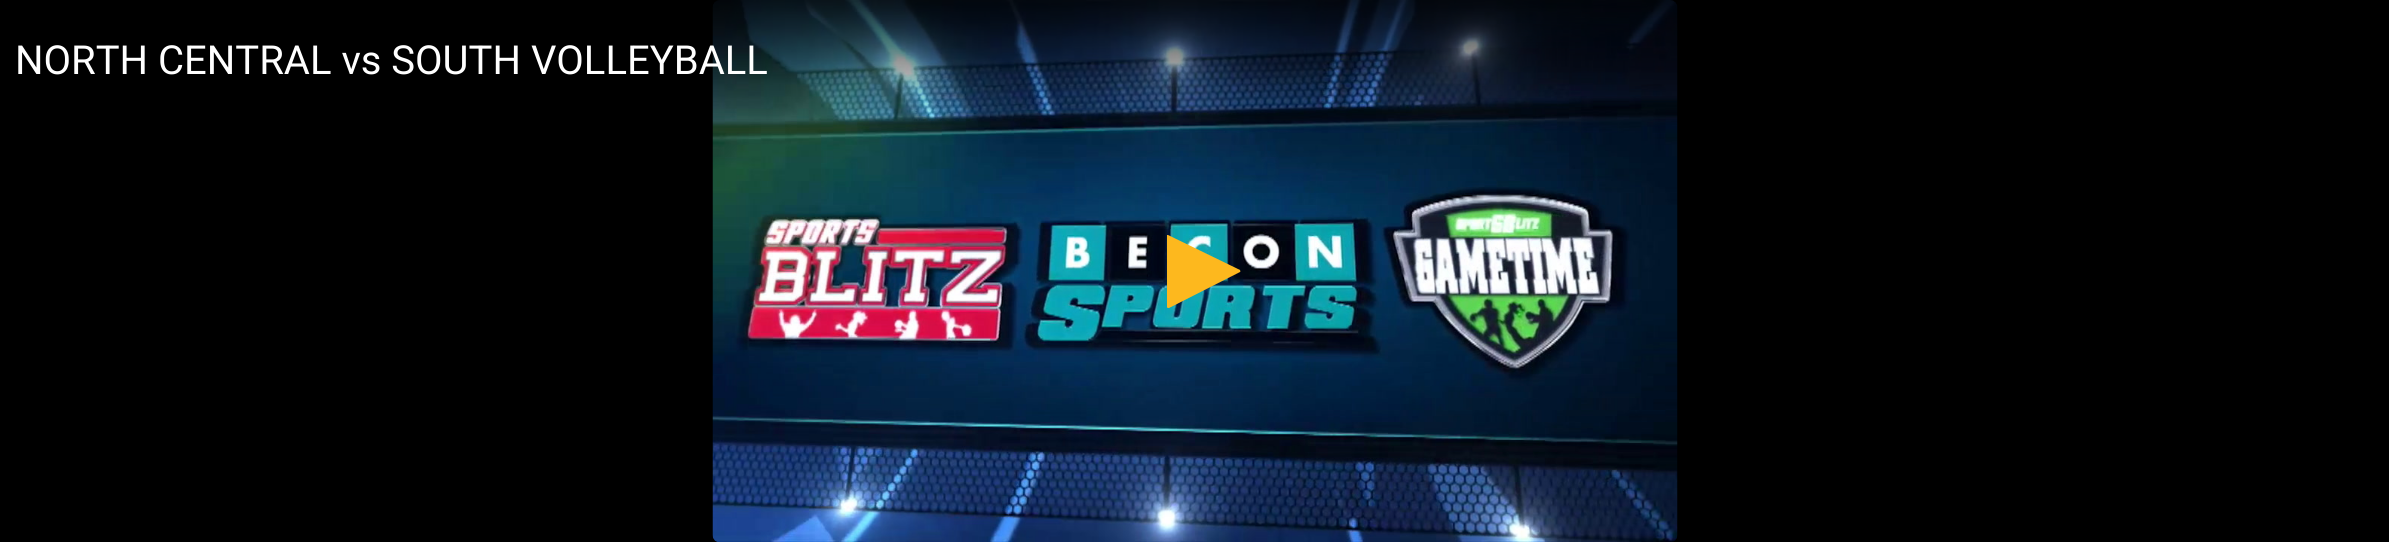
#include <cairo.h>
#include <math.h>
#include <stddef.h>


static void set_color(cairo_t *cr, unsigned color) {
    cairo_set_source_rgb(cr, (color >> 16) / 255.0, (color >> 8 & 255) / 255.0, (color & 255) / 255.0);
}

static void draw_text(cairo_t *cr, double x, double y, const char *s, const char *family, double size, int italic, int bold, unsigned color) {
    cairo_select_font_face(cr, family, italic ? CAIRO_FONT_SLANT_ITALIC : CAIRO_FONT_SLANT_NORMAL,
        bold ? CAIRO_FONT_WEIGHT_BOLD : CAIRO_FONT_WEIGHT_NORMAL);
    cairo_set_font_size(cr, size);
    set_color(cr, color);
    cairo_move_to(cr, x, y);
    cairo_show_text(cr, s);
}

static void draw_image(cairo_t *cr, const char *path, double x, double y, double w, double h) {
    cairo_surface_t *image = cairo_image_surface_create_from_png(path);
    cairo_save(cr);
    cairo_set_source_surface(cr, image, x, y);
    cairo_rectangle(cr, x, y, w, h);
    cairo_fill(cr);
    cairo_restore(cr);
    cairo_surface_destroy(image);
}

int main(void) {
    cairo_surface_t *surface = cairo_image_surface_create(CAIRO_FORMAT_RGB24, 2389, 542);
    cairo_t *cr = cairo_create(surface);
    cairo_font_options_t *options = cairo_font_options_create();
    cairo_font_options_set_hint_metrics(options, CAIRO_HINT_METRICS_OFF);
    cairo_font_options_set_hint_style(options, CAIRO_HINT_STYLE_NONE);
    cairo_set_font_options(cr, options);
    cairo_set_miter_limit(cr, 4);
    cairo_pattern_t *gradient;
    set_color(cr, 0x000000);
    cairo_paint(cr);
    draw_image(cr, "assets/img1.png", 712, 0, 966, 542);
    gradient = cairo_pattern_create_linear(1195, 0, 1195, 123);
    cairo_pattern_add_color_stop_rgba(gradient, 0, 0, 0, 0, 0.8);
    cairo_pattern_add_color_stop_rgba(gradient, 1, 0, 0, 0, 0);
    cairo_set_source(cr, gradient);
    cairo_pattern_destroy(gradient);
    cairo_rectangle(cr, 712, 0, 966, 120);
    cairo_fill(cr);
    draw_text(cr, 15, 74, "NORTH CENTRAL vs SOUTH VOLLEYBALL", "Roboto", 40, 0, 0, 0xFFFFFF);
    set_color(cr, 0xFDB81E);
    cairo_new_path(cr);
    cairo_move_to(cr, 1169, 308);
    cairo_curve_to(cr, 1168, 308, 1167, 308, 1167, 307);
    cairo_line_to(cr, 1167, 235);
    cairo_line_to(cr, 1168, 235);
    cairo_line_to(cr, 1240, 270);
    cairo_curve_to(cr, 1240, 271, 1241, 271, 1240, 272);
    cairo_close_path(cr);
    cairo_fill(cr);
    cairo_surface_write_to_png(surface, "output.png");
    cairo_font_options_destroy(options);
    cairo_destroy(cr);
    cairo_surface_destroy(surface);
    return 0;
}
